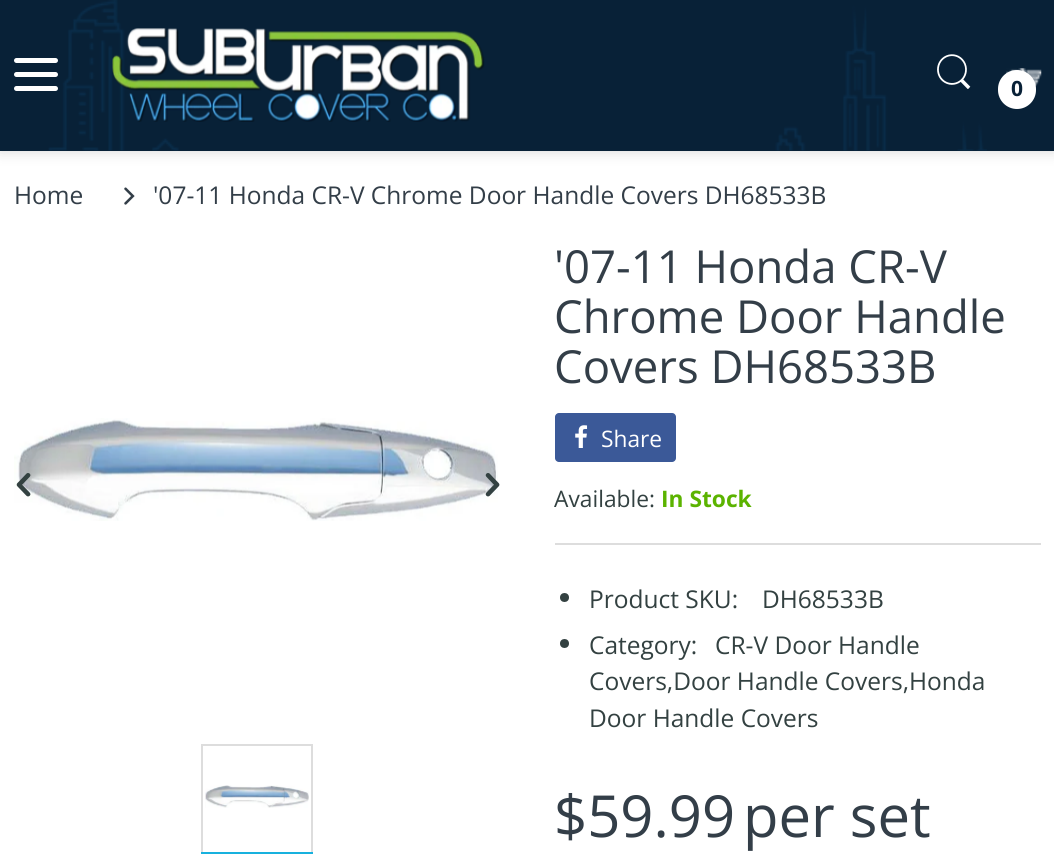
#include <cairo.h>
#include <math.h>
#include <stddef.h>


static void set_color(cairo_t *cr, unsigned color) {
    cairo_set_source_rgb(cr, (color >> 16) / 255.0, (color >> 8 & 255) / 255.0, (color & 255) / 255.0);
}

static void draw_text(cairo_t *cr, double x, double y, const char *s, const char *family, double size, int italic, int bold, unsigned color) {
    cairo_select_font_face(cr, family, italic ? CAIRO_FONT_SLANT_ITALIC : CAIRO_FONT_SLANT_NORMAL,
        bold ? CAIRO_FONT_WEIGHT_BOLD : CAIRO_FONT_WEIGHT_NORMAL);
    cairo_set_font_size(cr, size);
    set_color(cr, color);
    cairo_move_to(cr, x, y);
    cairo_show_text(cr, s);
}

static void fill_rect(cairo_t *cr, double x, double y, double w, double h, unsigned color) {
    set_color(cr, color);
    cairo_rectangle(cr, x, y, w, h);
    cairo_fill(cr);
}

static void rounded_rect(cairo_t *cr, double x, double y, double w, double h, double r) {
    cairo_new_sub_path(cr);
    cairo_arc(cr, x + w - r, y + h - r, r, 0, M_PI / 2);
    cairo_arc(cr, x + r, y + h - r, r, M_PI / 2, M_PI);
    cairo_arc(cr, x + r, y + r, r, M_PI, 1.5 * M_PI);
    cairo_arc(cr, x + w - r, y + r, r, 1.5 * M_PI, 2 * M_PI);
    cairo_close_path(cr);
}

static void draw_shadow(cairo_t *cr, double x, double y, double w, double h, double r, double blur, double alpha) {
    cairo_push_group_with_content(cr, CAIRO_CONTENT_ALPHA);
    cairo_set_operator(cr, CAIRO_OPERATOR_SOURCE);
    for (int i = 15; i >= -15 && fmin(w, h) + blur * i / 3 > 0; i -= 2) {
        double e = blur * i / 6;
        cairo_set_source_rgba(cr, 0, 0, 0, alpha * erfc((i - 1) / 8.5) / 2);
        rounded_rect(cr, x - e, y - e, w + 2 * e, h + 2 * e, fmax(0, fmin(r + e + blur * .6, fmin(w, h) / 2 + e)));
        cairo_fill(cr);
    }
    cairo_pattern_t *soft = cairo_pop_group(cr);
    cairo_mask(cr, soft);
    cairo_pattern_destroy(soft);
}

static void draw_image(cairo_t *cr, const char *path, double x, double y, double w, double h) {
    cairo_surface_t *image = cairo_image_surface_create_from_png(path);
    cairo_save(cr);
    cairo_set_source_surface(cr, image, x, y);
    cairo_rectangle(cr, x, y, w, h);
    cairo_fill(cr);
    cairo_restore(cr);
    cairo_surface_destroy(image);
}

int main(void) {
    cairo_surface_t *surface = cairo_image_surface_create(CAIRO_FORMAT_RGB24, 1054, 854);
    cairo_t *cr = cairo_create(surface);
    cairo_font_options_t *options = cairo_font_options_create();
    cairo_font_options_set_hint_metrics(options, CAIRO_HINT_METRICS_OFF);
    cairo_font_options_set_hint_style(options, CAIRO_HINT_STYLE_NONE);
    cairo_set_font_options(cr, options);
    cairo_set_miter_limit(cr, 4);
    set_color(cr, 0xFFFFFF);
    cairo_paint(cr);
    set_color(cr, 0xC9C9C9);
    draw_shadow(cr, 0, 0, 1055, 151, 0, 7, 0.75);
    fill_rect(cr, 0, 0, 1054, 151, 0x082137);
    draw_image(cr, "assets/img1.png", 48, 0, 939, 151);
    set_color(cr, 0xFFFFFF);
    rounded_rect(cr, 14, 58, 44, 5, 2.5);
    cairo_fill(cr);
    rounded_rect(cr, 14, 72, 44, 5, 2.5);
    cairo_fill(cr);
    rounded_rect(cr, 14, 86, 44, 5, 2.5);
    cairo_fill(cr);
    draw_image(cr, "assets/img2.png", 112, 28, 373, 94);
    draw_image(cr, "assets/img3.png", 937, 54, 34, 35);
    draw_image(cr, "assets/img4.png", 1006, 68, 36, 19);
    rounded_rect(cr, 998, 70, 38, 39, 19);
    cairo_fill(cr);
    draw_text(cr, 1011, 96, "0", "Open Sans", 21, 0, 1, 0x082137);
    draw_text(cr, 14, 204, "Home", "Open Sans", 24.5, 0, 0, 0x333E48);
    draw_image(cr, "assets/img5.png", 124, 187, 11, 18);
    draw_text(cr, 153, 204, "'07-11 Honda CR-V Chrome Door Handle Covers DH68533B", "Open Sans", 24.5, 0, 0, 0x333E48);
    draw_image(cr, "assets/img6.png", 14, 418, 484, 103);
    draw_image(cr, "assets/img7.png", 16, 473, 15, 24);
    draw_image(cr, "assets/img8.png", 485, 473, 15, 24);
    cairo_rectangle(cr, 202, 745, 110, 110);
    set_color(cr, 0xDDDDDD);
    cairo_stroke(cr);
    draw_image(cr, "assets/img9.png", 205, 785, 104, 23);
    fill_rect(cr, 201, 852, 112, 2, 0x18B1DE);
    draw_text(cr, 554, 283, "'07-11 Honda CR-V", "Open Sans", 45.5, 0, 0, 0x333E48);
    draw_text(cr, 554, 333, "Chrome Door Handle", "Open Sans", 45.5, 0, 0, 0x333E48);
    draw_text(cr, 554, 383, "Covers DH68533B", "Open Sans", 45.5, 0, 0, 0x333E48);
    set_color(cr, 0x3B5998);
    rounded_rect(cr, 555, 413, 121, 49, 4);
    cairo_fill(cr);
    draw_image(cr, "assets/img10.png", 575, 425, 13, 23);
    draw_text(cr, 601, 447, "Share", "Open Sans", 22.75, 0, 0, 0xFFFFFF);
    fill_rect(cr, 555, 543, 486, 2, 0xDDDDDD);
    draw_text(cr, 554, 507, "Available:", "Open Sans", 22.75, 0, 0, 0x334141);
    draw_text(cr, 661, 507, "In Stock", "Open Sans", 22.75, 0, 1, 0x5BB300);
    set_color(cr, 0x334141);
    cairo_new_path(cr);
    cairo_arc(cr, 564.5, 597.5, 4.5, 0, 2 * M_PI);
    cairo_fill(cr);
    draw_text(cr, 589, 608, "Product SKU:", "Open Sans", 24.5, 0, 0, 0x334141);
    draw_text(cr, 762, 608, "DH68533B", "Open Sans", 24.5, 0, 0, 0x334141);
    cairo_new_path(cr);
    cairo_arc(cr, 564.5, 643.5, 4.5, 0, 2 * M_PI);
    cairo_fill(cr);
    draw_text(cr, 589, 654, "Category:", "Open Sans", 24.5, 0, 0, 0x334141);
    draw_text(cr, 715, 654, "CR-V Door Handle", "Open Sans", 24.5, 0, 0, 0x334141);
    draw_text(cr, 589, 690, "Covers,Door Handle Covers,Honda", "Open Sans", 24.5, 0, 0, 0x334141);
    draw_text(cr, 589, 727, "Door Handle Covers", "Open Sans", 24.5, 0, 0, 0x334141);
    draw_text(cr, 554, 837, "$59.99", "Open Sans", 58, 0, 0, 0x333E48);
    draw_text(cr, 743, 837, "per set", "Open Sans", 58, 0, 0, 0x333E48);
    cairo_surface_write_to_png(surface, "output.png");
    cairo_font_options_destroy(options);
    cairo_destroy(cr);
    cairo_surface_destroy(surface);
    return 0;
}
